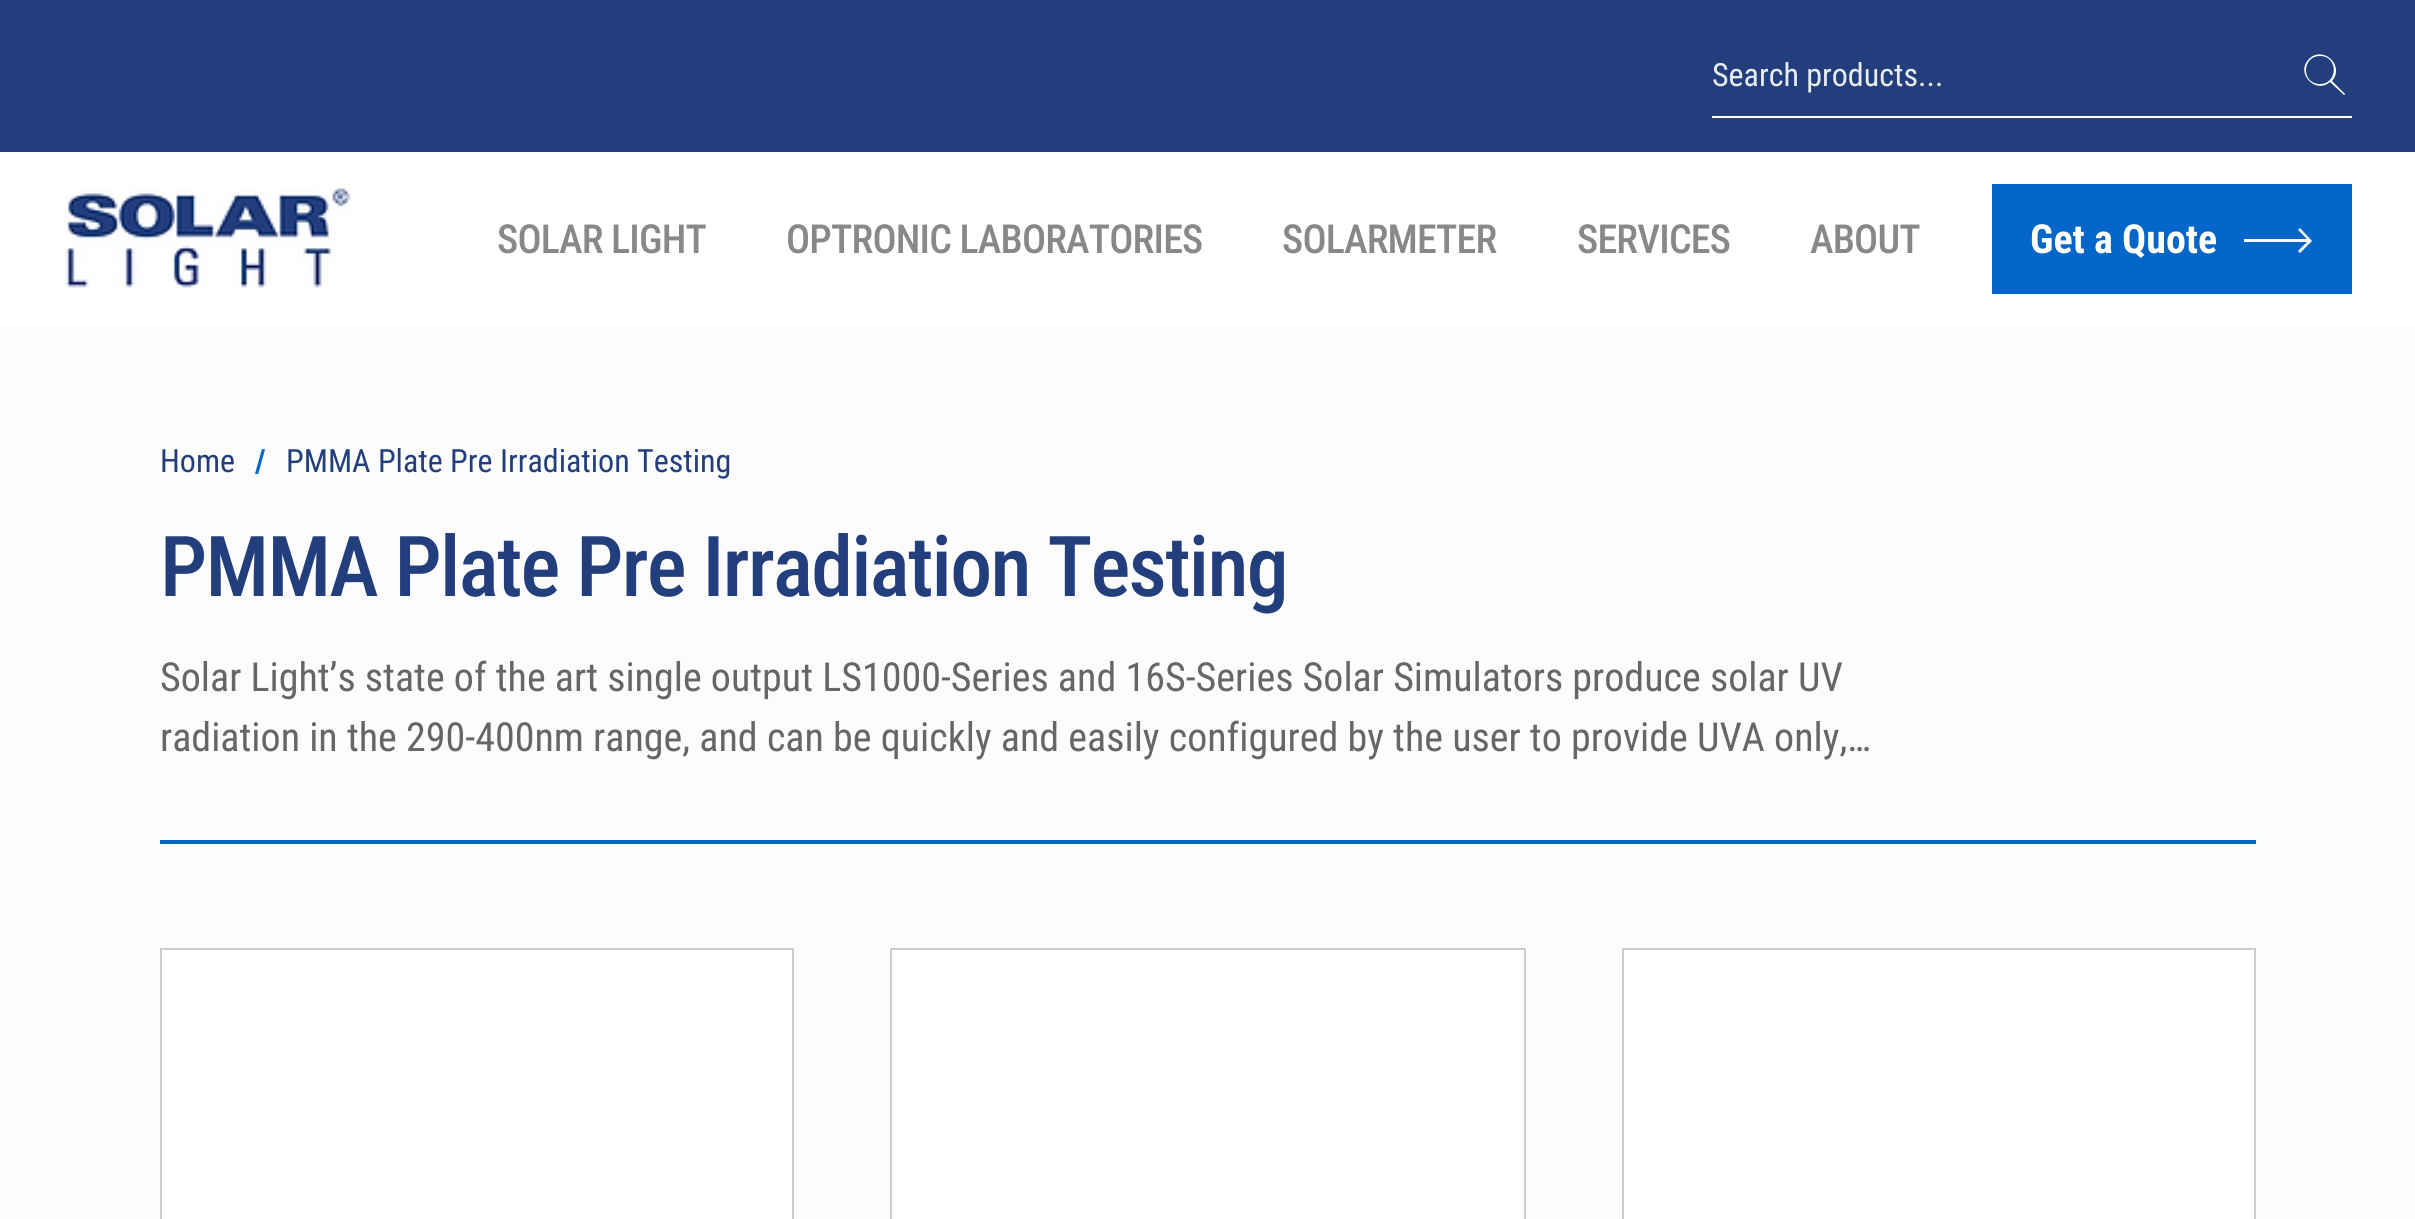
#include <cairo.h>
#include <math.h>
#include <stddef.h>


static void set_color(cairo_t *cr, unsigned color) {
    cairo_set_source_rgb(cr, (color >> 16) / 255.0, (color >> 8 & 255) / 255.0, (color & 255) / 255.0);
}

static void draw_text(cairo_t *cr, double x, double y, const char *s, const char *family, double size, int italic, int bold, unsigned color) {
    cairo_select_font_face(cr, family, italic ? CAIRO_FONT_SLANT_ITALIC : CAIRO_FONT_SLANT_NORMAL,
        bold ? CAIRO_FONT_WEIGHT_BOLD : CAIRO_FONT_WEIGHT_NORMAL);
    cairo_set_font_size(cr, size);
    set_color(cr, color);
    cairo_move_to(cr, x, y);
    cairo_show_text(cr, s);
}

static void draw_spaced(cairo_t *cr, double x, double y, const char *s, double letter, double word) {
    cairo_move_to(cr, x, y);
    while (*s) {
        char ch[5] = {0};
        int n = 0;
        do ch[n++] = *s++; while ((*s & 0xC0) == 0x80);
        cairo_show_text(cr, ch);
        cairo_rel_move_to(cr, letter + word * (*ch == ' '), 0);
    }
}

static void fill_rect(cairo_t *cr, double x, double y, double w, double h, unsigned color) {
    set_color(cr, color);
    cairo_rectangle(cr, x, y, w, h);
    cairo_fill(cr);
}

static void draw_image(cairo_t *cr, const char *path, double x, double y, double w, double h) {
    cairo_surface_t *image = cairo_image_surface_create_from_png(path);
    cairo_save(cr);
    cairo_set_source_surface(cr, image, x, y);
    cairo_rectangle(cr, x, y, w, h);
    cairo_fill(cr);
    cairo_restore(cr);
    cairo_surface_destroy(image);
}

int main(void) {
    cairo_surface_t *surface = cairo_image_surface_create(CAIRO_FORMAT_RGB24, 2415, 1219);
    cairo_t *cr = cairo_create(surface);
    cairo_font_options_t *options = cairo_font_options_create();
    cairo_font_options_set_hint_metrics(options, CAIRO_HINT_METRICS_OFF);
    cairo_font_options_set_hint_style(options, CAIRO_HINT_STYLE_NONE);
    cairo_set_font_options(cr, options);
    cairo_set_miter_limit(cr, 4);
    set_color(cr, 0xFFFFFF);
    cairo_paint(cr);
    fill_rect(cr, 0, 0, 2415, 152, 0x223E7C);
    draw_text(cr, 1712, 86, "Search products...", "Roboto Condensed", 32, 0, 0, 0xE9ECF2);
    set_color(cr, 0xFFFFFF);
    cairo_new_path(cr);
    cairo_move_to(cr, 2330, 82);
    cairo_curve_to(cr, 2315, 95, 2294, 72, 2310, 58);
    cairo_curve_to(cr, 2324, 46, 2345, 66, 2332, 81);
    cairo_line_to(cr, 2345, 94);
    cairo_curve_to(cr, 2345, 95, 2344, 95, 2344, 95);
    cairo_close_path(cr);
    cairo_move_to(cr, 2320, 56);
    cairo_curve_to(cr, 2302, 56, 2301, 83, 2319, 84);
    cairo_curve_to(cr, 2338, 85, 2339, 56, 2320, 56);
    cairo_close_path(cr);
    cairo_fill(cr);
    fill_rect(cr, 1712, 116, 640, 2, 0xFFFFFF);
    draw_image(cr, "assets/img1.png", 65, 188, 286, 103);
    cairo_select_font_face(cr, "Roboto Condensed Medium", CAIRO_FONT_SLANT_NORMAL, CAIRO_FONT_WEIGHT_NORMAL);
    cairo_set_font_size(cr, 40);
    set_color(cr, 0x888888);
    draw_spaced(cr, 497, 253, "SOLAR LIGHT", -0.8, 0);
    draw_spaced(cr, 786, 253, "OPTRONIC LABORATORIES", -0.8, 0);
    draw_spaced(cr, 1282, 253, "SOLARMETER", -0.8, 0);
    draw_spaced(cr, 1577, 253, "SERVICES", -0.8, 0);
    draw_spaced(cr, 1810, 253, "ABOUT", -0.8, 0);
    fill_rect(cr, 1992, 184, 360, 110, 0x0466C8);
    draw_text(cr, 2030, 253, "Get a Quote", "Roboto Condensed", 40, 0, 1, 0xFFFFFF);
    cairo_new_path(cr);
    cairo_move_to(cr, 2244, 242);
    cairo_line_to(cr, 2307, 242);
    cairo_line_to(cr, 2298, 251);
    cairo_line_to(cr, 2300, 253);
    cairo_line_to(cr, 2312, 241);
    cairo_line_to(cr, 2300, 228);
    cairo_line_to(cr, 2298, 230);
    cairo_line_to(cr, 2307, 239);
    cairo_line_to(cr, 2244, 239);
    cairo_close_path(cr);
    cairo_fill(cr);
    fill_rect(cr, 0, 326, 2415, 893, 0xFCFCFC);
    draw_text(cr, 160, 472, "Home", "Roboto Condensed", 32, 0, 0, 0x223E7C);
    draw_text(cr, 255, 472, "/", "Roboto Condensed", 32, 0, 1, 0x0466C8);
    draw_text(cr, 286, 472, "PMMA Plate Pre Irradiation Testing", "Roboto Condensed", 32, 0, 0, 0x223E7C);
    cairo_select_font_face(cr, "Roboto Condensed Medium", CAIRO_FONT_SLANT_NORMAL, CAIRO_FONT_WEIGHT_NORMAL);
    cairo_set_font_size(cr, 84);
    draw_spaced(cr, 160, 596, "PMMA Plate Pre Irradiation Testing", -1.7, 0);
    draw_text(cr, 160, 691, "Solar Light’s state of the art single output LS1000-Series and 16S-Series Solar Simulators produce solar UV", "Roboto Condensed", 40, 0, 0, 0x666666);
    draw_text(cr, 160, 751, "radiation in the 290-400nm range, and can be quickly and easily configured by the user to provide UVA only,…", "Roboto Condensed", 40, 0, 0, 0x666666);
    fill_rect(cr, 160, 840, 2096, 4, 0x0466C8);
    set_color(cr, 0xFFFFFF);
    cairo_rectangle(cr, 161, 949, 632, 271);
    cairo_fill_preserve(cr);
    set_color(cr, 0xCCCCCC);
    cairo_stroke(cr);
    set_color(cr, 0xFFFFFF);
    cairo_rectangle(cr, 891, 949, 634, 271);
    cairo_fill_preserve(cr);
    set_color(cr, 0xCCCCCC);
    cairo_stroke(cr);
    set_color(cr, 0xFFFFFF);
    cairo_rectangle(cr, 1623, 949, 632, 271);
    cairo_fill_preserve(cr);
    set_color(cr, 0xCCCCCC);
    cairo_stroke(cr);
    cairo_surface_write_to_png(surface, "output.png");
    cairo_font_options_destroy(options);
    cairo_destroy(cr);
    cairo_surface_destroy(surface);
    return 0;
}
